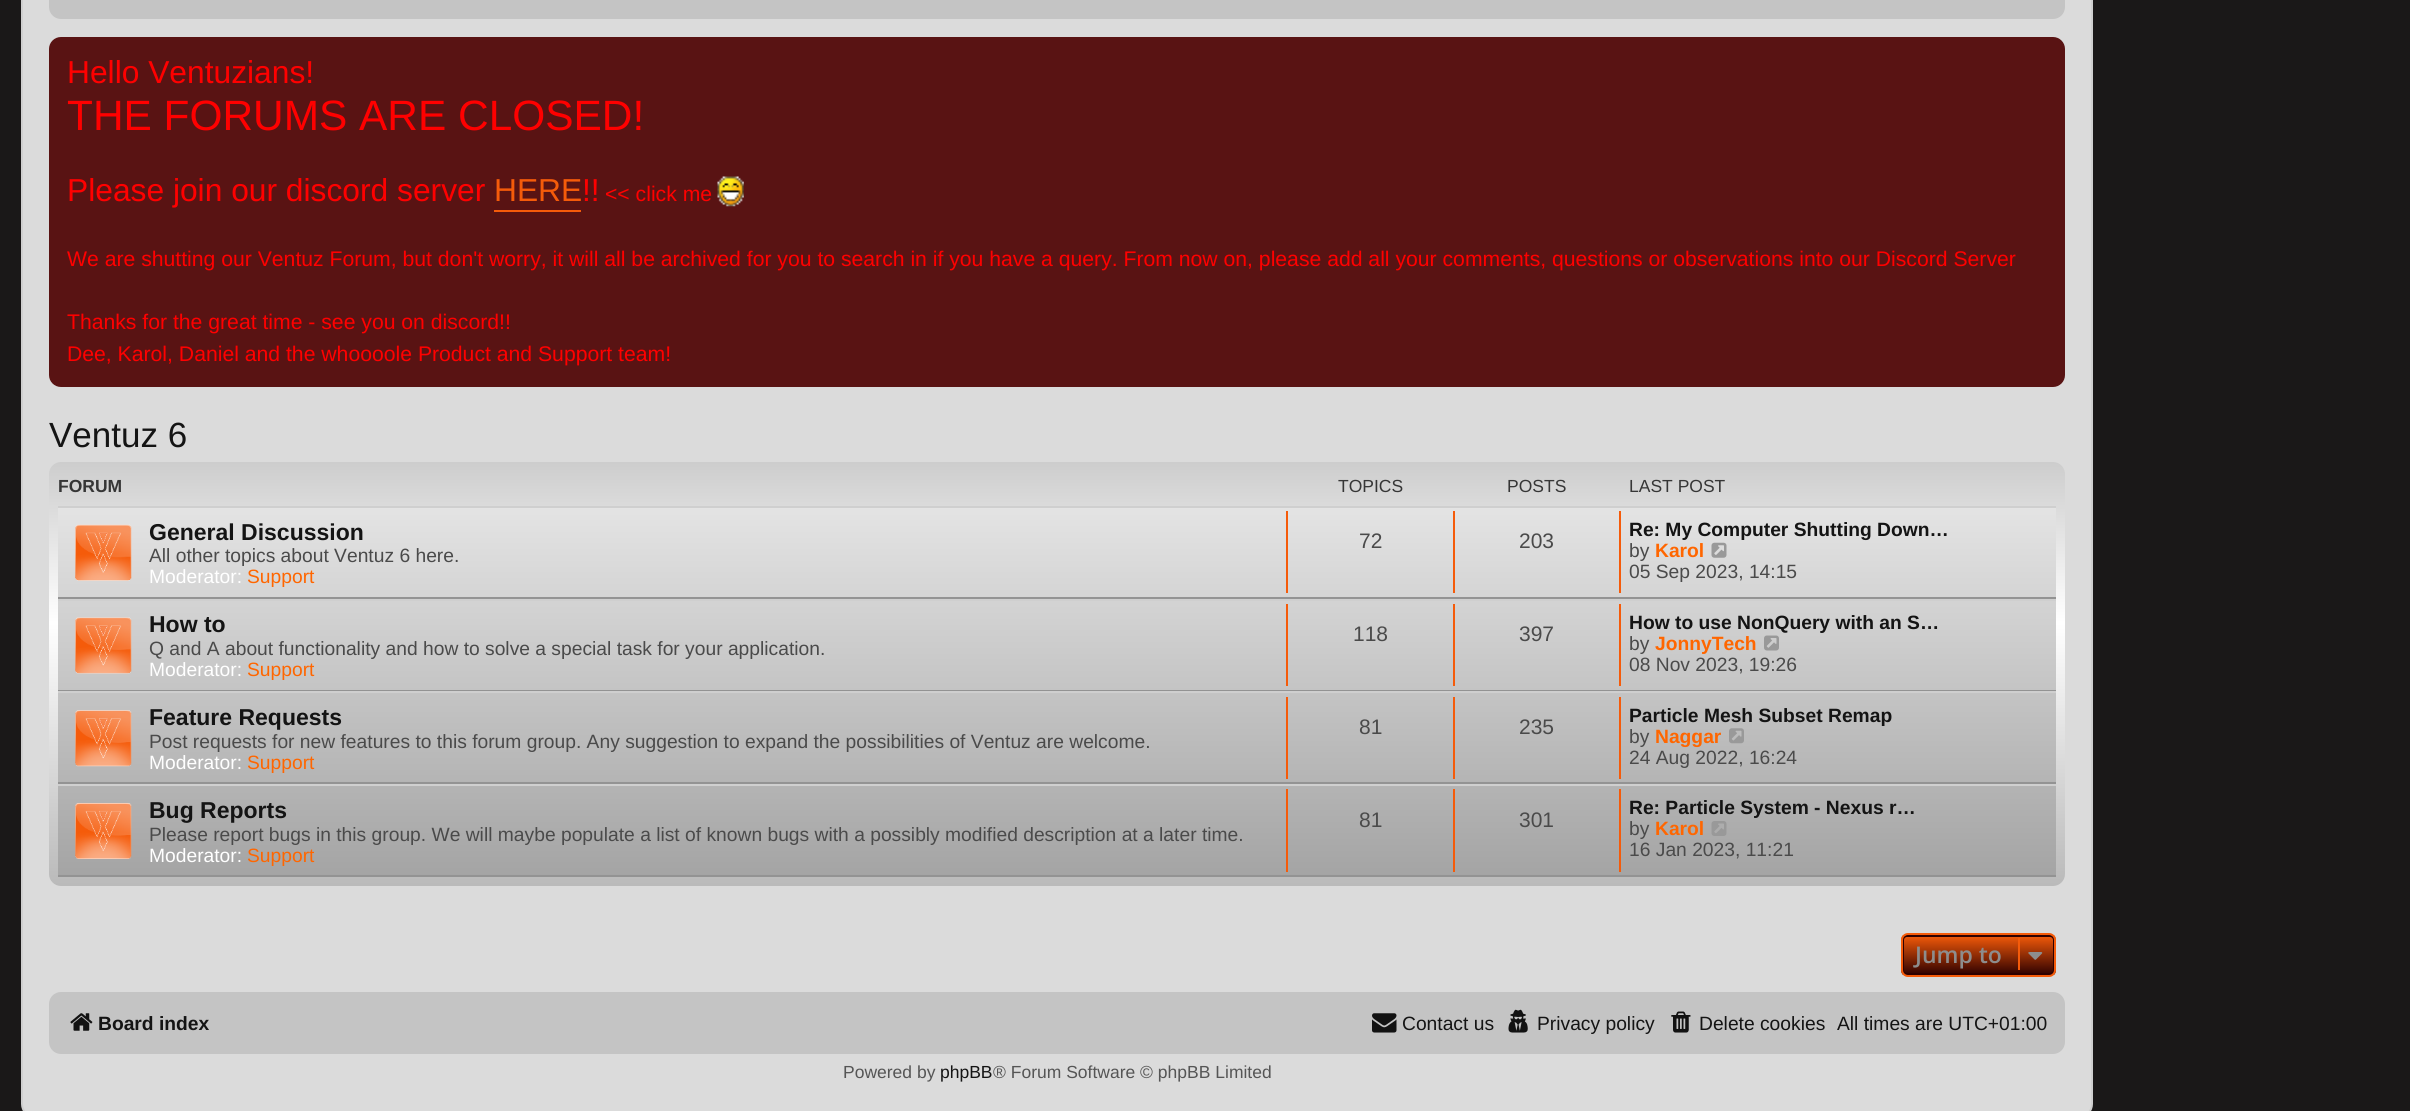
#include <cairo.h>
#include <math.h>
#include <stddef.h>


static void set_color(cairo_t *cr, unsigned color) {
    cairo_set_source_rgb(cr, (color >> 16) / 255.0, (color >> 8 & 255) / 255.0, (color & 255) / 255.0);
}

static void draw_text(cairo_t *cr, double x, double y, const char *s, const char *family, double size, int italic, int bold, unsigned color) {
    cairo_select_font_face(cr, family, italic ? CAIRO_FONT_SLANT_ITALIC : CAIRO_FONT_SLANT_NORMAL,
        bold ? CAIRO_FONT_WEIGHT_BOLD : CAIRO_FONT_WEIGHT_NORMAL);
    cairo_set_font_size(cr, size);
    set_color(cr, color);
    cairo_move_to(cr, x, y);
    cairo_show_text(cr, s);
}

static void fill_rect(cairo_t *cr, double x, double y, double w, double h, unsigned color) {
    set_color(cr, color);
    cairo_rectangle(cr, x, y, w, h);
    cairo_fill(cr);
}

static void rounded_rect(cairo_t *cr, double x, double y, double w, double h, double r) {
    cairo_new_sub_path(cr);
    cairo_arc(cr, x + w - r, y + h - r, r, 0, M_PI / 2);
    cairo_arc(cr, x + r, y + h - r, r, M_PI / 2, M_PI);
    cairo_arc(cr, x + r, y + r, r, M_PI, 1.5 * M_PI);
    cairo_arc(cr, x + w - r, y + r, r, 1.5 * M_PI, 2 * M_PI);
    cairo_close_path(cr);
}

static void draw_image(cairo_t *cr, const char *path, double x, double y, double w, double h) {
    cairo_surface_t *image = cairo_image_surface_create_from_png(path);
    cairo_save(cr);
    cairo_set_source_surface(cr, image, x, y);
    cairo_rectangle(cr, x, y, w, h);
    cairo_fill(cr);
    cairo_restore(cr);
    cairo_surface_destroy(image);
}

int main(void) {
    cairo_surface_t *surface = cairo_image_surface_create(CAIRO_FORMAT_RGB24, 2410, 1111);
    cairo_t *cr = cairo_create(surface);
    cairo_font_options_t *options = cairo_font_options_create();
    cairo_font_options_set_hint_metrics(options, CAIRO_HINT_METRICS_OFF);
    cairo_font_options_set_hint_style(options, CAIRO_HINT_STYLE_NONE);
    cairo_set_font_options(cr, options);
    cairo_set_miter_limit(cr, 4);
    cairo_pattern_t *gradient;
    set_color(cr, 0x1A1818);
    cairo_paint(cr);
    set_color(cr, 0xDBDBDB);
    rounded_rect(cr, 22, -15, 2070, 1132, 13);
    cairo_fill_preserve(cr);
    set_color(cr, 0xCFCFCF);
    cairo_stroke(cr);
    set_color(cr, 0xC4C4C4);
    rounded_rect(cr, 49, -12, 2016, 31, 12);
    cairo_fill(cr);
    set_color(cr, 0x591313);
    rounded_rect(cr, 49, 37, 2016, 350, 12);
    cairo_fill(cr);
    draw_text(cr, 67, 83, "Hello Ventuzians!", "Liberation Sans", 31.75, 0, 0, 0xFF0000);
    draw_text(cr, 67, 130, "THE FORUMS ARE CLOSED!", "Liberation Sans", 42.4, 0, 0, 0xFF0000);
    draw_text(cr, 67, 201, "Please join our discord server", "Liberation Sans", 31.75, 0, 0, 0xFF0000);
    fill_rect(cr, 494, 210, 87, 2, 0xF55B0A);
    draw_text(cr, 494, 201, "HERE", "Liberation Sans", 31.75, 0, 0, 0xF55B0A);
    draw_text(cr, 582, 201, "!!", "Liberation Sans", 31.75, 0, 0, 0xFF0000);
    draw_text(cr, 605, 201, "<< click me", "Liberation Sans", 21.18, 0, 0, 0xFF0000);
    draw_image(cr, "assets/img1.png", 717, 176, 27, 31);
    draw_text(cr, 67, 266, "We are shutting our Ventuz Forum, but don't worry, it will all be archived for you to search in if you have a query. From now on, please add all your comments, questions or observations into our Discord Server", "Liberation Sans", 21.18, 0, 0, 0xFF0000);
    draw_text(cr, 67, 329, "Thanks for the great time - see you on discord!!", "Liberation Sans", 21.18, 0, 0, 0xFF0000);
    draw_text(cr, 67, 361, "Dee, Karol, Daniel and the whoooole Product and Support team!", "Liberation Sans", 21.18, 0, 0, 0xFF0000);
    draw_text(cr, 49, 447, "Ventuz 6", "Liberation Sans", 35, 0, 0, 0x141414);
    gradient = cairo_pattern_create_linear(1057, 462, 1057, 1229);
    cairo_pattern_add_color_stop_rgba(gradient, 0, 0.988, 0.988, 0.988, 1);
    cairo_pattern_add_color_stop_rgba(gradient, 0, 0.804, 0.804, 0.804, 1);
    cairo_pattern_add_color_stop_rgba(gradient, 0.21, 1, 1, 1, 1);
    cairo_pattern_add_color_stop_rgba(gradient, 1, 0.373, 0.373, 0.373, 1);
    cairo_set_source(cr, gradient);
    cairo_pattern_destroy(gradient);
    rounded_rect(cr, 49, 462, 2016, 424, 12);
    cairo_fill(cr);
    draw_text(cr, 58, 492, "FORUM", "Liberation Sans", 17.5, 0, 1, 0x363636);
    draw_text(cr, 1338, 492, "TOPICS", "Liberation Sans", 17.5, 0, 0, 0x363636);
    draw_text(cr, 1507, 492, "POSTS", "Liberation Sans", 17.5, 0, 0, 0x363636);
    draw_text(cr, 1629, 492, "LAST POST", "Liberation Sans", 17.5, 0, 0, 0x363636);
    gradient = cairo_pattern_create_linear(1057, 506, 1057, 877);
    cairo_pattern_add_color_stop_rgba(gradient, 0, 0.894, 0.894, 0.894, 1);
    cairo_pattern_add_color_stop_rgba(gradient, 1, 0.643, 0.643, 0.643, 1);
    cairo_set_source(cr, gradient);
    cairo_pattern_destroy(gradient);
    cairo_rectangle(cr, 58, 508, 1998, 367);
    cairo_fill(cr);
    fill_rect(cr, 58, 506, 1998, 2, 0xCFCFCF);
    fill_rect(cr, 58, 597, 1998, 2, 0x939393);
    draw_image(cr, "assets/img2.png", 75, 524, 57, 57);
    draw_text(cr, 149, 540, "General Discussion", "Liberation Sans", 23, 0, 1, 0x141414);
    draw_text(cr, 149, 562, "All other topics about Ventuz 6 here.", "Liberation Sans", 19.25, 0, 0, 0x4A4A4A);
    draw_text(cr, 149, 583, "Moderator:", "Liberation Sans", 19.25, 0, 0, 0xFFFFFF);
    draw_text(cr, 247, 583, "Support", "Liberation Sans", 19.25, 0, 0, 0xFF6600);
    fill_rect(cr, 1286, 511, 2, 82, 0xF55B0A);
    draw_text(cr, 1359, 548, "72", "Liberation Sans", 21, 0, 0, 0x4A4A4A);
    fill_rect(cr, 1453, 511, 2, 82, 0xF55B0A);
    draw_text(cr, 1519, 548, "203", "Liberation Sans", 21, 0, 0, 0x4A4A4A);
    fill_rect(cr, 1619, 511, 2, 82, 0xF55B0A);
    draw_text(cr, 1629, 536, "Re: My Computer Shutting Down…", "Liberation Sans", 19.25, 0, 1, 0x141414);
    draw_text(cr, 1629, 557, "by", "Liberation Sans", 19.25, 0, 0, 0x4A4A4A);
    draw_text(cr, 1655, 557, "Karol", "Liberation Sans", 19.25, 0, 1, 0xFF6600);
    draw_image(cr, "assets/img3.png", 1711, 542, 16, 16);
    draw_text(cr, 1629, 578, "05 Sep 2023, 14:15", "Liberation Sans", 19.25, 0, 0, 0x4A4A4A);
    fill_rect(cr, 58, 599, 1998, 2, 0xCFCFCF);
    fill_rect(cr, 58, 690, 1998, 1, 0x939393);
    draw_image(cr, "assets/img4.png", 75, 617, 57, 57);
    draw_text(cr, 149, 632, "How to", "Liberation Sans", 23, 0, 1, 0x141414);
    draw_text(cr, 149, 655, "Q and A about functionality and how to solve a special task for your application.", "Liberation Sans", 19.25, 0, 0, 0x4A4A4A);
    draw_text(cr, 149, 676, "Moderator:", "Liberation Sans", 19.25, 0, 0, 0xFFFFFF);
    draw_text(cr, 247, 676, "Support", "Liberation Sans", 19.25, 0, 0, 0xFF6600);
    fill_rect(cr, 1286, 604, 2, 82, 0xF55B0A);
    draw_text(cr, 1353, 641, "118", "Liberation Sans", 21, 0, 0, 0x4A4A4A);
    fill_rect(cr, 1453, 604, 2, 82, 0xF55B0A);
    draw_text(cr, 1519, 641, "397", "Liberation Sans", 21, 0, 0, 0x4A4A4A);
    fill_rect(cr, 1619, 604, 2, 82, 0xF55B0A);
    draw_text(cr, 1629, 629, "How to use NonQuery with an S…", "Liberation Sans", 19.25, 0, 1, 0x141414);
    draw_text(cr, 1629, 650, "by", "Liberation Sans", 19.25, 0, 0, 0x4A4A4A);
    draw_text(cr, 1655, 650, "JonnyTech", "Liberation Sans", 19.25, 0, 1, 0xFF6600);
    draw_image(cr, "assets/img5.png", 1764, 635, 15, 16);
    draw_text(cr, 1629, 671, "08 Nov 2023, 19:26", "Liberation Sans", 19.25, 0, 0, 0x4A4A4A);
    fill_rect(cr, 58, 691, 1998, 2, 0xCFCFCF);
    fill_rect(cr, 58, 782, 1998, 2, 0x939393);
    draw_image(cr, "assets/img6.png", 75, 710, 57, 57);
    draw_text(cr, 149, 725, "Feature Requests", "Liberation Sans", 23, 0, 1, 0x141414);
    draw_text(cr, 149, 748, "Post requests for new features to this forum group. Any suggestion to expand the possibilities of Ventuz are welcome.", "Liberation Sans", 19.25, 0, 0, 0x4A4A4A);
    draw_text(cr, 149, 769, "Moderator:", "Liberation Sans", 19.25, 0, 0, 0xFFFFFF);
    draw_text(cr, 247, 769, "Support", "Liberation Sans", 19.25, 0, 0, 0xFF6600);
    fill_rect(cr, 1286, 697, 2, 82, 0xF55B0A);
    draw_text(cr, 1359, 734, "81", "Liberation Sans", 21, 0, 0, 0x4A4A4A);
    fill_rect(cr, 1453, 697, 2, 82, 0xF55B0A);
    draw_text(cr, 1519, 734, "235", "Liberation Sans", 21, 0, 0, 0x4A4A4A);
    fill_rect(cr, 1619, 697, 2, 82, 0xF55B0A);
    draw_text(cr, 1629, 722, "Particle Mesh Subset Remap", "Liberation Sans", 19.25, 0, 1, 0x141414);
    draw_text(cr, 1629, 743, "by", "Liberation Sans", 19.25, 0, 0, 0x4A4A4A);
    draw_text(cr, 1655, 743, "Naggar", "Liberation Sans", 19.25, 0, 1, 0xFF6600);
    draw_image(cr, "assets/img7.png", 1729, 728, 15, 16);
    draw_text(cr, 1629, 764, "24 Aug 2022, 16:24", "Liberation Sans", 19.25, 0, 0, 0x4A4A4A);
    fill_rect(cr, 58, 784, 1998, 2, 0xCFCFCF);
    fill_rect(cr, 58, 875, 1998, 2, 0x939393);
    draw_image(cr, "assets/img8.png", 75, 803, 57, 56);
    draw_text(cr, 149, 818, "Bug Reports", "Liberation Sans", 23, 0, 1, 0x141414);
    draw_text(cr, 149, 841, "Please report bugs in this group. We will maybe populate a list of known bugs with a possibly modified description at a later time.", "Liberation Sans", 19.25, 0, 0, 0x4A4A4A);
    draw_text(cr, 149, 862, "Moderator:", "Liberation Sans", 19.25, 0, 0, 0xFFFFFF);
    draw_text(cr, 247, 862, "Support", "Liberation Sans", 19.25, 0, 0, 0xFF6600);
    fill_rect(cr, 1286, 789, 2, 83, 0xF55B0A);
    draw_text(cr, 1359, 827, "81", "Liberation Sans", 21, 0, 0, 0x4A4A4A);
    fill_rect(cr, 1453, 789, 2, 83, 0xF55B0A);
    draw_text(cr, 1519, 827, "301", "Liberation Sans", 21, 0, 0, 0x4A4A4A);
    fill_rect(cr, 1619, 789, 2, 83, 0xF55B0A);
    draw_text(cr, 1629, 814, "Re: Particle System - Nexus r…", "Liberation Sans", 19.25, 0, 1, 0x141414);
    draw_text(cr, 1629, 835, "by", "Liberation Sans", 19.25, 0, 0, 0x4A4A4A);
    draw_text(cr, 1655, 835, "Karol", "Liberation Sans", 19.25, 0, 1, 0xFF6600);
    draw_image(cr, "assets/img9.png", 1711, 821, 16, 15);
    draw_text(cr, 1629, 856, "16 Jan 2023, 11:21", "Liberation Sans", 19.25, 0, 0, 0x4A4A4A);
    cairo_save(cr);
    rounded_rect(cr, 1901, 933, 155, 44, 7);
    cairo_clip(cr);
    gradient = cairo_pattern_create_linear(1978, 935, 1978, 975);
    cairo_pattern_add_color_stop_rgba(gradient, 0, 0.961, 0.357, 0.039, 1);
    cairo_pattern_add_color_stop_rgba(gradient, 1, 0.18, 0, 0, 1);
    cairo_set_source(cr, gradient);
    cairo_pattern_destroy(gradient);
    cairo_rectangle(cr, 1901, 935, 155, 40);
    cairo_fill(cr);
    cairo_restore(cr);
    rounded_rect(cr, 1903, 936, 151, 38, 4);
    set_color(cr, 0x2E0000);
    cairo_stroke(cr);
    rounded_rect(cr, 1902, 934, 153, 42, 6);
    set_color(cr, 0xF55B0A);
    cairo_stroke(cr);
    draw_text(cr, 1915, 963, "Jump to", "Open Sans SemiBold", 23, 0, 0, 0x8D8D8D);
    fill_rect(cr, 2018, 938, 2, 32, 0xF55B0A);
    draw_image(cr, "assets/img10.png", 2028, 952, 15, 8);
    set_color(cr, 0xC4C4C4);
    rounded_rect(cr, 49, 992, 2016, 62, 12);
    cairo_fill(cr);
    draw_image(cr, "assets/img11.png", 70, 1013, 23, 18);
    draw_text(cr, 98, 1030, "Board index", "Liberation Sans", 19.25, 0, 1, 0x141414);
    draw_image(cr, "assets/img12.png", 1372, 1013, 25, 20);
    draw_text(cr, 1402, 1030, "Contact us", "Liberation Sans", 19.25, 0, 0, 0x141414);
    draw_image(cr, "assets/img13.png", 1508, 1009, 20, 24);
    draw_text(cr, 1537, 1030, "Privacy policy", "Liberation Sans", 19.25, 0, 0, 0x141414);
    draw_image(cr, "assets/img14.png", 1671, 1011, 20, 22);
    draw_text(cr, 1699, 1030, "Delete cookies", "Liberation Sans", 19.25, 0, 0, 0x141414);
    draw_text(cr, 1837, 1030, "All times are UTC+01:00", "Liberation Sans", 19.25, 0, 0, 0x141414);
    draw_text(cr, 843, 1078, "Powered by", "Liberation Sans", 17.5, 0, 0, 0x555555);
    draw_text(cr, 940, 1078, "phpBB", "Liberation Sans", 17.5, 0, 0, 0x141414);
    draw_text(cr, 993, 1078, "® Forum Software © phpBB Limited", "Liberation Sans", 17.5, 0, 0, 0x555555);
    cairo_surface_write_to_png(surface, "output.png");
    cairo_font_options_destroy(options);
    cairo_destroy(cr);
    cairo_surface_destroy(surface);
    return 0;
}
